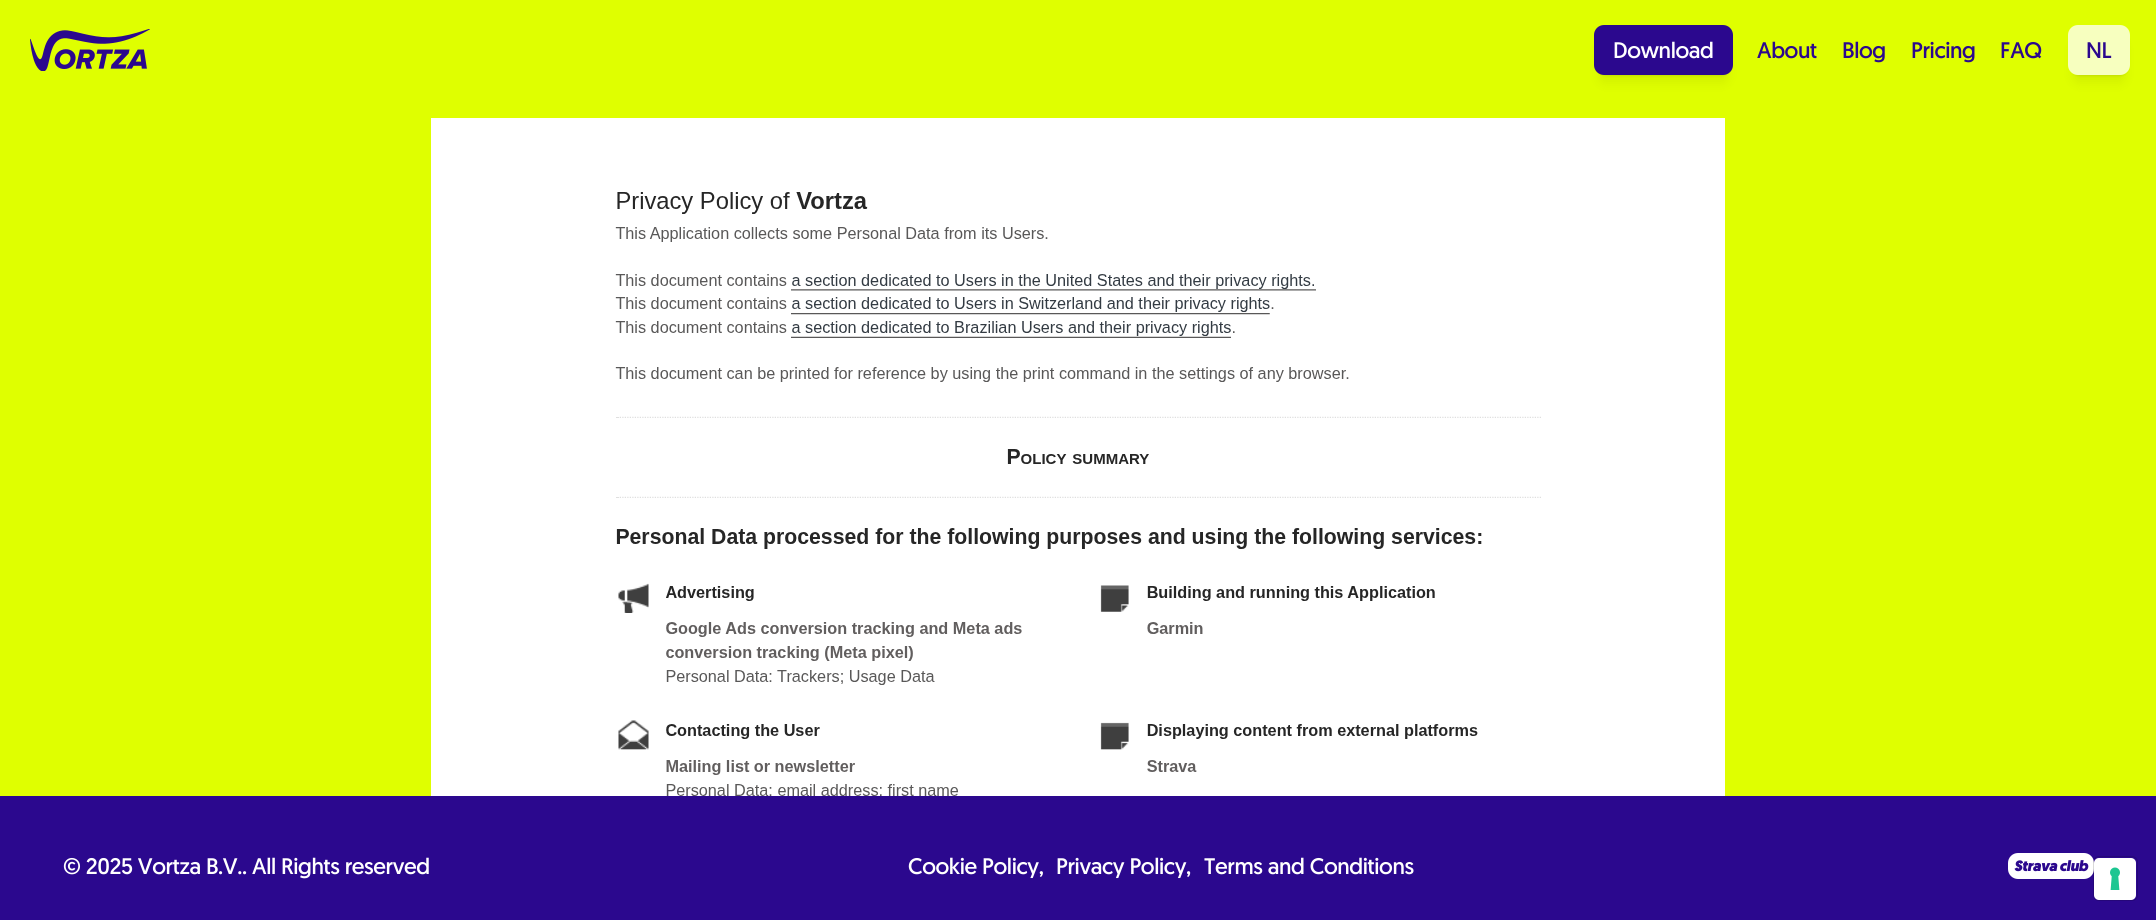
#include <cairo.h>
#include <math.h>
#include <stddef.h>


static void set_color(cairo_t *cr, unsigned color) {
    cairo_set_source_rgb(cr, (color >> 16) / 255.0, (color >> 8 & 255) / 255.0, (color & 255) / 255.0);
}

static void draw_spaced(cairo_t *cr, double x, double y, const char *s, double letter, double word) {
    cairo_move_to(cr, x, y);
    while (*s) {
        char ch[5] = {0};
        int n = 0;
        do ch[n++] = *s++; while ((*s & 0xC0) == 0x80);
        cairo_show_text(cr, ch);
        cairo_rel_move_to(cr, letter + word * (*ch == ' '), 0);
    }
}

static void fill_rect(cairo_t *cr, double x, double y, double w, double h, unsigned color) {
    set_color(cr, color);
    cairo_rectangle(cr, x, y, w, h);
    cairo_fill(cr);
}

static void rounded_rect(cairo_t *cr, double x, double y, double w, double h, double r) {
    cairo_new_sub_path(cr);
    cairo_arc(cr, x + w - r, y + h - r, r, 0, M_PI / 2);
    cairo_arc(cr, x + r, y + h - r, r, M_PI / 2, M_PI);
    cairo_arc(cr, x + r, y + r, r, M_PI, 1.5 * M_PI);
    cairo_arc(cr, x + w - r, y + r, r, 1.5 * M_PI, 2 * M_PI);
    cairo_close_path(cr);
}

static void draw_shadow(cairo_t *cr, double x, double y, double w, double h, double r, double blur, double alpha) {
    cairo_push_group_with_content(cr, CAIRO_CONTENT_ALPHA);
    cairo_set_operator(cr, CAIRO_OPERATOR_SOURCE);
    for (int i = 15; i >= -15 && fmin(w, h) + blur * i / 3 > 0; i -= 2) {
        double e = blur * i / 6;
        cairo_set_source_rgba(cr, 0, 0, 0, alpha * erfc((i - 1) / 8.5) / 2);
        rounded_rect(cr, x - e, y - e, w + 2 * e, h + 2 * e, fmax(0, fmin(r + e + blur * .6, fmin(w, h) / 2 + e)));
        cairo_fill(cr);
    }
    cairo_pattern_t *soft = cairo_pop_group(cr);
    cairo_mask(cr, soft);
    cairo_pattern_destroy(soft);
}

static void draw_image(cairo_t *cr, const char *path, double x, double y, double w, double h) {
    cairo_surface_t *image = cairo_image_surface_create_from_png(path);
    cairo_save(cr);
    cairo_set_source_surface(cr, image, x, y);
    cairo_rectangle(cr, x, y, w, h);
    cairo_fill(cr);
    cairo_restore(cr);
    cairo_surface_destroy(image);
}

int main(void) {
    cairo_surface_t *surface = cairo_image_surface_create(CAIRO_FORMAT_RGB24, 2156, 920);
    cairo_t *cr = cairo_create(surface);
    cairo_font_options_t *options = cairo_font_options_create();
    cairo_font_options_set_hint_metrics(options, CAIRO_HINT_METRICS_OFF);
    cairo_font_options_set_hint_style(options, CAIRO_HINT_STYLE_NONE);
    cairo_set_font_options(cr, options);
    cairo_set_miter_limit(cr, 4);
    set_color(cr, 0xDFFF00);
    cairo_paint(cr);
    draw_image(cr, "assets/img1.png", 30, 29, 120, 42);
    set_color(cr, 0x000000);
    draw_shadow(cr, 1599, 43, 129, 40, 5, 6, 0.06);
    draw_shadow(cr, 1598, 31, 132, 44, 8, 1.5, 0.16);
    set_color(cr, 0x2B088E);
    rounded_rect(cr, 1594, 25, 139, 50, 10);
    cairo_fill(cr);
    cairo_select_font_face(cr, "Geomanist", CAIRO_FONT_SLANT_NORMAL, CAIRO_FONT_WEIGHT_NORMAL);
    cairo_set_font_size(cr, 22.5);
    set_color(cr, 0xFFFFFF);
    draw_spaced(cr, 1613, 58, "Download", -0.4, 0);
    set_color(cr, 0x2B088E);
    draw_spaced(cr, 1757, 58, "About", -0.4, 0);
    draw_spaced(cr, 1842, 58, "Blog", -0.4, 0);
    draw_spaced(cr, 1911, 58, "Pricing", -0.4, 0);
    draw_spaced(cr, 2000, 58, "FAQ", -0.4, 0);
    cairo_save(cr);
    cairo_set_fill_rule(cr, CAIRO_FILL_RULE_EVEN_ODD);
    cairo_new_path(cr);
    cairo_move_to(cr, 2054, 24);
    cairo_line_to(cr, 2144, 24);
    cairo_line_to(cr, 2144, 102);
    cairo_line_to(cr, 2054, 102);
    cairo_close_path(cr);
    cairo_move_to(cr, 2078, 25);
    cairo_line_to(cr, 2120, 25);
    cairo_curve_to(cr, 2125.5, 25, 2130, 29.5, 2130, 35);
    cairo_line_to(cr, 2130, 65);
    cairo_curve_to(cr, 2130, 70.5, 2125.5, 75, 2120, 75);
    cairo_line_to(cr, 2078, 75);
    cairo_curve_to(cr, 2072.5, 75, 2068, 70.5, 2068, 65);
    cairo_line_to(cr, 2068, 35);
    cairo_curve_to(cr, 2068, 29.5, 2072.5, 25, 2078, 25);
    cairo_close_path(cr);
    cairo_clip(cr);
    set_color(cr, 0x000000);
    draw_shadow(cr, 2073, 43, 52, 40, 5, 6, 0.06);
    cairo_restore(cr);
    cairo_save(cr);
    cairo_set_fill_rule(cr, CAIRO_FILL_RULE_EVEN_ODD);
    cairo_new_path(cr);
    cairo_move_to(cr, 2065, 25);
    cairo_line_to(cr, 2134, 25);
    cairo_line_to(cr, 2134, 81);
    cairo_line_to(cr, 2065, 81);
    cairo_close_path(cr);
    cairo_move_to(cr, 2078, 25);
    cairo_line_to(cr, 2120, 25);
    cairo_curve_to(cr, 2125.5, 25, 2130, 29.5, 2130, 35);
    cairo_line_to(cr, 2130, 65);
    cairo_curve_to(cr, 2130, 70.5, 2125.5, 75, 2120, 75);
    cairo_line_to(cr, 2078, 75);
    cairo_curve_to(cr, 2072.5, 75, 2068, 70.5, 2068, 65);
    cairo_line_to(cr, 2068, 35);
    cairo_curve_to(cr, 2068, 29.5, 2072.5, 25, 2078, 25);
    cairo_close_path(cr);
    cairo_clip(cr);
    set_color(cr, 0x000000);
    draw_shadow(cr, 2071, 31, 57, 44, 8, 1.5, 0.16);
    cairo_restore(cr);
    cairo_set_source_rgba(cr, 1, 1, 1, 0.75);
    rounded_rect(cr, 2068, 25, 62, 50, 10);
    cairo_fill(cr);
    set_color(cr, 0x2B088E);
    draw_spaced(cr, 2086, 58, "NL", -0.4, 0);
    draw_image(cr, "assets/img2.png", 431, 118, 1294, 678);
    fill_rect(cr, 0, 796, 2156, 124, 0x2B088E);
    set_color(cr, 0xFFFFFF);
    draw_spaced(cr, 63, 874, "© 2025 Vortza B.V.. All Rights reserved", -0.4, 0);
    draw_spaced(cr, 908, 874, "Cookie Policy,", -0.4, 0);
    draw_spaced(cr, 1056, 874, "Privacy Policy,", -0.4, 0);
    draw_spaced(cr, 1204, 874, "Terms and Conditions", -0.4, 0);
    rounded_rect(cr, 2008, 853, 86, 26, 10);
    cairo_fill(cr);
    cairo_select_font_face(cr, "Geomanist Black", CAIRO_FONT_SLANT_ITALIC, CAIRO_FONT_WEIGHT_NORMAL);
    cairo_set_font_size(cr, 15);
    set_color(cr, 0x2B088E);
    draw_spaced(cr, 2014, 871, "Strava club", -0.4, 0);
    rounded_rect(cr, 2093.5, 856.5, 44, 44, 5.5);
    cairo_set_source_rgba(cr, 0, 0, 0, 0.15);
    cairo_set_line_width(cr, 1);
    cairo_stroke(cr);
    set_color(cr, 0xFFFFFF);
    rounded_rect(cr, 2094, 858, 42, 42, 5);
    cairo_fill(cr);
    draw_image(cr, "assets/img3.png", 2110, 867, 10, 23);
    cairo_surface_write_to_png(surface, "output.png");
    cairo_font_options_destroy(options);
    cairo_destroy(cr);
    cairo_surface_destroy(surface);
    return 0;
}
